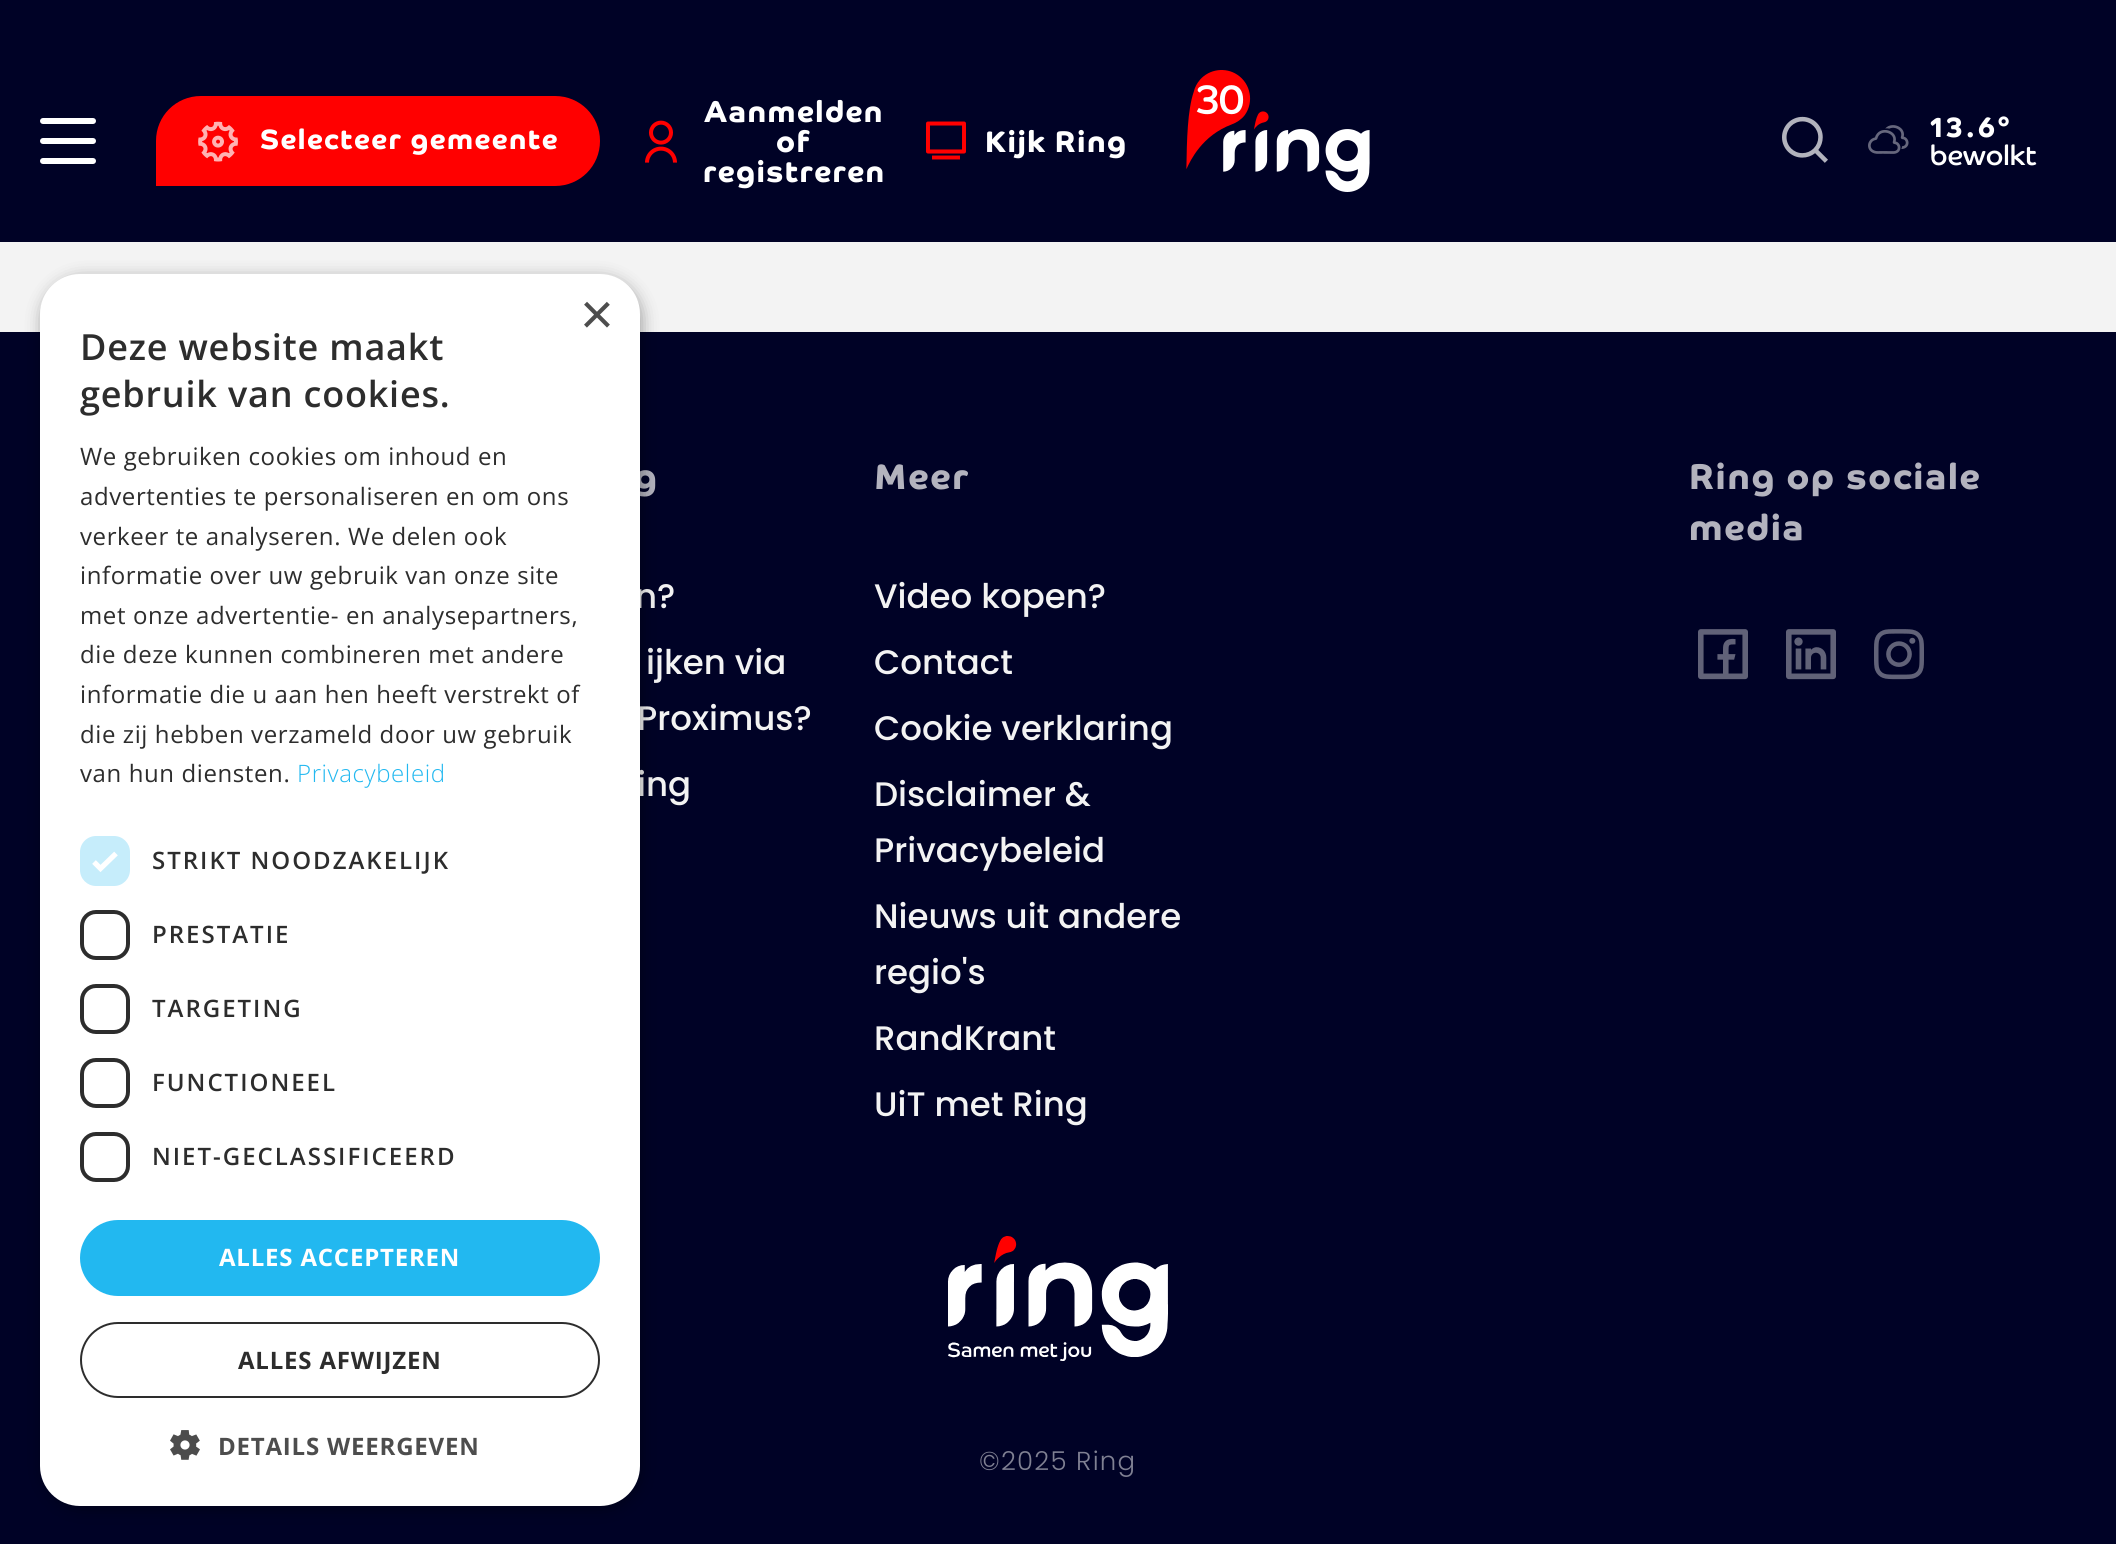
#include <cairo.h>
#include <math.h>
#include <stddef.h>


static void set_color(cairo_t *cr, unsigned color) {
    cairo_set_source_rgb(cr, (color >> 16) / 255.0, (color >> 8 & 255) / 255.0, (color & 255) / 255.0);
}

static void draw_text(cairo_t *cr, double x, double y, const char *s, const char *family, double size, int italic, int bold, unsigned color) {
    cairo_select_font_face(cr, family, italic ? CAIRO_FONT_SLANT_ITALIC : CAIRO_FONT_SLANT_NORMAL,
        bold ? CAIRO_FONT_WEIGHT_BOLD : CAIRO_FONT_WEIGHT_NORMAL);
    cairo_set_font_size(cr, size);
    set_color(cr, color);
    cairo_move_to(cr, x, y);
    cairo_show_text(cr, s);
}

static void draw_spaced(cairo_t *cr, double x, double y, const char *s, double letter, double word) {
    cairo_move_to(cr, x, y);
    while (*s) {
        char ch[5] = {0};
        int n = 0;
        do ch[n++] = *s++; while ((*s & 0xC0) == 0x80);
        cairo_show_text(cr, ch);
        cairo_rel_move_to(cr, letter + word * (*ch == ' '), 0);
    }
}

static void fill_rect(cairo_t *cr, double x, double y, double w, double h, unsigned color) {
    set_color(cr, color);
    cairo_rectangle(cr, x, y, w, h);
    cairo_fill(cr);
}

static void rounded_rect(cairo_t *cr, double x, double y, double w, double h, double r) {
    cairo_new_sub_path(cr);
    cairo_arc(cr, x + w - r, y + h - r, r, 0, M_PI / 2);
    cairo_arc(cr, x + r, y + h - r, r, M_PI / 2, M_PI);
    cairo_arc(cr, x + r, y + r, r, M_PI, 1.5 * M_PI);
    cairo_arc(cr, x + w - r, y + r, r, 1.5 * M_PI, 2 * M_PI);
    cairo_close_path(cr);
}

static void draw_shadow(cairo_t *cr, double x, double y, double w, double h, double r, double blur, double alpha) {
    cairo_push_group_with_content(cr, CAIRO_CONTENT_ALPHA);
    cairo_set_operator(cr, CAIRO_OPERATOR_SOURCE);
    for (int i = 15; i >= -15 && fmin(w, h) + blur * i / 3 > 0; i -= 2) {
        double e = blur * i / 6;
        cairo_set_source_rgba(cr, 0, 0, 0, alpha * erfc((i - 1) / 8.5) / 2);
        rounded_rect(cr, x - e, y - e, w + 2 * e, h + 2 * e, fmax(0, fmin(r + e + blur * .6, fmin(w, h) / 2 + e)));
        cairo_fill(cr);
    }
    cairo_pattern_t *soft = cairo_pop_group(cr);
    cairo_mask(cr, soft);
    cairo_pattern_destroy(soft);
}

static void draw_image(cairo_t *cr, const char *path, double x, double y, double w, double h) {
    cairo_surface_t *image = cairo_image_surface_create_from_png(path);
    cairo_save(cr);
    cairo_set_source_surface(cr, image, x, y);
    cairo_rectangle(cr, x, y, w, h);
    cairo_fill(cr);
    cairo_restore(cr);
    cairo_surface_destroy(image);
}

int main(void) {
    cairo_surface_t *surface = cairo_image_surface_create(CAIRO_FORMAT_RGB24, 2116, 1546);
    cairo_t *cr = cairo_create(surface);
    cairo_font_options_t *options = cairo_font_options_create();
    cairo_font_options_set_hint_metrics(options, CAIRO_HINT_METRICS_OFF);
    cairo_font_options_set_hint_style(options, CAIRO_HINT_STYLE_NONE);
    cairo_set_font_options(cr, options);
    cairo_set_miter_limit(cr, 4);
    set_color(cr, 0xFFFFFF);
    cairo_paint(cr);
    fill_rect(cr, 0, 0, 2116, 242, 0x000226);
    set_color(cr, 0xFFFFFF);
    rounded_rect(cr, 40, 138, 56, 6, 3);
    cairo_fill(cr);
    rounded_rect(cr, 40, 118, 56, 6, 3);
    cairo_fill(cr);
    rounded_rect(cr, 40, 158, 56, 6, 3);
    cairo_fill(cr);
    set_color(cr, 0xFF0000);
    cairo_new_path(cr);
    cairo_move_to(cr, 201, 97);
    cairo_line_to(cr, 555, 97);
    cairo_curve_to(cr, 579.5, 97, 599, 116.5, 599, 141);
    cairo_curve_to(cr, 599, 165.5, 579.5, 185, 555, 185);
    cairo_line_to(cr, 157, 185);
    cairo_line_to(cr, 157, 141);
    cairo_curve_to(cr, 157, 116.5, 176.5, 97, 201, 97);
    cairo_close_path(cr);
    cairo_fill_preserve(cr);
    cairo_stroke(cr);
    draw_image(cr, "assets/img1.png", 198, 121, 40, 41);
    cairo_select_font_face(cr, "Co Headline", CAIRO_FONT_SLANT_NORMAL, CAIRO_FONT_WEIGHT_BOLD);
    cairo_set_font_size(cr, 28);
    set_color(cr, 0xFFFFFF);
    draw_spaced(cr, 260, 149, "Selecteer gemeente", 1.5, 0);
    draw_image(cr, "assets/img2.png", 645, 120, 32, 43);
    cairo_set_font_size(cr, 30);
    draw_spaced(cr, 704, 122, "Aanmelden", 1.5, 0);
    draw_spaced(cr, 776, 152, "of", 1.5, 0);
    draw_spaced(cr, 703, 182, "registreren", 1.5, 0);
    draw_image(cr, "assets/img3.png", 926, 121, 40, 39);
    draw_spaced(cr, 985, 152, "Kijk Ring", 1.5, -1);
    draw_image(cr, "assets/img4.png", 1186, 70, 184, 122);
    draw_image(cr, "assets/img5.png", 1782, 116, 46, 47);
    draw_image(cr, "assets/img6.png", 1868, 125, 41, 29);
    cairo_set_font_size(cr, 28);
    draw_spaced(cr, 1930, 137, "13.6°", 2.75, 0);
    draw_text(cr, 1930, 165, "bewolkt", "Co Headline", 28, 0, 0, 0xFFFFFF);
    fill_rect(cr, 0, 242, 2116, 90, 0xF3F3F3);
    fill_rect(cr, 0, 332, 2116, 1212, 0x000226);
    cairo_select_font_face(cr, "Co Headline", CAIRO_FONT_SLANT_NORMAL, CAIRO_FONT_WEIGHT_BOLD);
    cairo_set_font_size(cr, 36);
    set_color(cr, 0xB3B3BE);
    draw_spaced(cr, 634, 489, "g", 1.75, 0);
    draw_text(cr, 635, 608, "n?", "Poppins Medium", 34, 0, 0, 0xF3F3F3);
    draw_text(cr, 646, 674, "ijken via", "Poppins Medium", 34, 0, 0, 0xF3F3F3);
    draw_text(cr, 637, 730, "Proximus?", "Poppins Medium", 34, 0, 0, 0xF3F3F3);
    draw_text(cr, 637, 796, "ing", "Poppins Medium", 34, 0, 0, 0xF3F3F3);
    cairo_select_font_face(cr, "Co Headline", CAIRO_FONT_SLANT_NORMAL, CAIRO_FONT_WEIGHT_BOLD);
    cairo_set_font_size(cr, 36);
    set_color(cr, 0xB3B3BE);
    draw_spaced(cr, 874, 489, "Meer", 1.75, 0);
    draw_text(cr, 874, 608, "Video kopen?", "Poppins Medium", 34, 0, 0, 0xF3F3F3);
    draw_text(cr, 874, 674, "Contact", "Poppins Medium", 34, 0, 0, 0xF3F3F3);
    draw_text(cr, 874, 740, "Cookie verklaring", "Poppins Medium", 34, 0, 0, 0xF3F3F3);
    draw_text(cr, 874, 806, "Disclaimer &", "Poppins Medium", 34, 0, 0, 0xF3F3F3);
    draw_text(cr, 874, 862, "Privacybeleid", "Poppins Medium", 34, 0, 0, 0xF3F3F3);
    draw_text(cr, 874, 928, "Nieuws uit andere", "Poppins Medium", 34, 0, 0, 0xF3F3F3);
    draw_text(cr, 874, 984, "regio's", "Poppins Medium", 34, 0, 0, 0xF3F3F3);
    draw_text(cr, 874, 1050, "RandKrant", "Poppins Medium", 34, 0, 0, 0xF3F3F3);
    draw_text(cr, 874, 1116, "UiT met Ring", "Poppins Medium", 34, 0, 0, 0xF3F3F3);
    cairo_select_font_face(cr, "Co Headline", CAIRO_FONT_SLANT_NORMAL, CAIRO_FONT_WEIGHT_BOLD);
    cairo_set_font_size(cr, 36);
    set_color(cr, 0xB3B3BE);
    draw_spaced(cr, 1689, 489, "Ring op sociale", 1.75, 0);
    draw_spaced(cr, 1689, 540, "media", 1.75, 0);
    draw_image(cr, "assets/img7.png", 1698, 629, 50, 51);
    draw_image(cr, "assets/img8.png", 1786, 629, 50, 51);
    draw_image(cr, "assets/img9.png", 1874, 629, 50, 51);
    draw_image(cr, "assets/img10.png", 948, 1236, 220, 125);
    cairo_select_font_face(cr, "Poppins Light", CAIRO_FONT_SLANT_NORMAL, CAIRO_FONT_WEIGHT_NORMAL);
    cairo_set_font_size(cr, 26);
    set_color(cr, 0x808193);
    draw_spaced(cr, 979, 1470, "©2025 Ring", 1.25, 0);
    set_color(cr, 0x000000);
    draw_shadow(cr, 42, 278, 600, 1232, 40, 8, 0.35);
    set_color(cr, 0xFFFFFF);
    rounded_rect(cr, 40, 274, 600, 1232, 40);
    cairo_fill(cr);
    draw_text(cr, 580, 334, "×", "Liberation Sans", 58, 0, 0, 0x4D4D4D);
    cairo_select_font_face(cr, "Open Sans SemiBold", CAIRO_FONT_SLANT_NORMAL, CAIRO_FONT_WEIGHT_NORMAL);
    cairo_set_font_size(cr, 36);
    set_color(cr, 0x2D2D2D);
    draw_spaced(cr, 80, 360, "Deze website maakt", 0.8, 0);
    draw_spaced(cr, 80, 407, "gebruik van cookies.", 0.8, 0);
    cairo_select_font_face(cr, "Open Sans", CAIRO_FONT_SLANT_NORMAL, CAIRO_FONT_WEIGHT_NORMAL);
    cairo_set_font_size(cr, 24);
    draw_spaced(cr, 80, 465, "We gebruiken cookies om inhoud en", 0.6, 0);
    draw_spaced(cr, 80, 505, "advertenties te personaliseren en om ons", 0.6, 0);
    draw_spaced(cr, 80, 545, "verkeer te analyseren. We delen ook", 0.6, 0);
    draw_spaced(cr, 80, 584, "informatie over uw gebruik van onze site", 0.6, 0);
    draw_spaced(cr, 80, 624, "met onze advertentie- en analysepartners,", 0.6, 0);
    draw_spaced(cr, 80, 663, "die deze kunnen combineren met andere", 0.6, 0);
    draw_spaced(cr, 80, 703, "informatie die u aan hen heeft verstrekt of", 0.6, 0);
    draw_spaced(cr, 80, 743, "die zij hebben verzameld door uw gebruik", 0.6, 0);
    draw_spaced(cr, 80, 782, "van hun diensten.", 0.6, 0);
    cairo_select_font_face(cr, "Open Sans Light", CAIRO_FONT_SLANT_NORMAL, CAIRO_FONT_WEIGHT_NORMAL);
    set_color(cr, 0x22B8F0);
    draw_spaced(cr, 297, 782, "Privacybeleid", 0.6, 0);
    set_color(cr, 0xC6EDFB);
    rounded_rect(cr, 80, 836, 50, 50, 16);
    cairo_fill(cr);
    cairo_new_path(cr);
    cairo_move_to(cr, 94, 862);
    cairo_line_to(cr, 100.5, 868.5);
    cairo_line_to(cr, 116, 853.5);
    set_color(cr, 0xFFFFFF);
    cairo_set_line_width(cr, 5.2);
    cairo_stroke(cr);
    cairo_select_font_face(cr, "Open Sans SemiBold", CAIRO_FONT_SLANT_NORMAL, CAIRO_FONT_WEIGHT_NORMAL);
    set_color(cr, 0x2D2D2D);
    draw_spaced(cr, 152, 869, "STRIKT NOODZAKELIJK", 2, 0);
    rounded_rect(cr, 82, 912, 46, 46, 14);
    cairo_set_line_width(cr, 4);
    cairo_stroke(cr);
    draw_spaced(cr, 152, 943, "PRESTATIE", 2, 0);
    rounded_rect(cr, 82, 986, 46, 46, 14);
    cairo_stroke(cr);
    draw_spaced(cr, 152, 1017, "TARGETING", 2, 0);
    rounded_rect(cr, 82, 1060, 46, 46, 14);
    cairo_stroke(cr);
    draw_spaced(cr, 152, 1091, "FUNCTIONEEL", 2, 0);
    rounded_rect(cr, 82, 1134, 46, 46, 14);
    cairo_stroke(cr);
    draw_spaced(cr, 152, 1165, "NIET-GECLASSIFICEERD", 2, 0);
    set_color(cr, 0x22B8F0);
    rounded_rect(cr, 80, 1220, 520, 76, 38);
    cairo_fill(cr);
    cairo_select_font_face(cr, "Open Sans", CAIRO_FONT_SLANT_NORMAL, CAIRO_FONT_WEIGHT_BOLD);
    set_color(cr, 0xFFFFFF);
    draw_spaced(cr, 219, 1266, "ALLES ACCEPTEREN", 0.8, 0);
    rounded_rect(cr, 81, 1323, 518, 74, 37);
    set_color(cr, 0x2D2D2D);
    cairo_set_line_width(cr, 2);
    cairo_stroke(cr);
    draw_spaced(cr, 238, 1369, "ALLES AFWIJZEN", 0.8, 0);
    draw_image(cr, "assets/img11.png", 170, 1430, 30, 30);
    set_color(cr, 0x4D4D4D);
    draw_spaced(cr, 218, 1455, "DETAILS WEERGEVEN", 0.8, 0);
    cairo_surface_write_to_png(surface, "output.png");
    cairo_font_options_destroy(options);
    cairo_destroy(cr);
    cairo_surface_destroy(surface);
    return 0;
}
